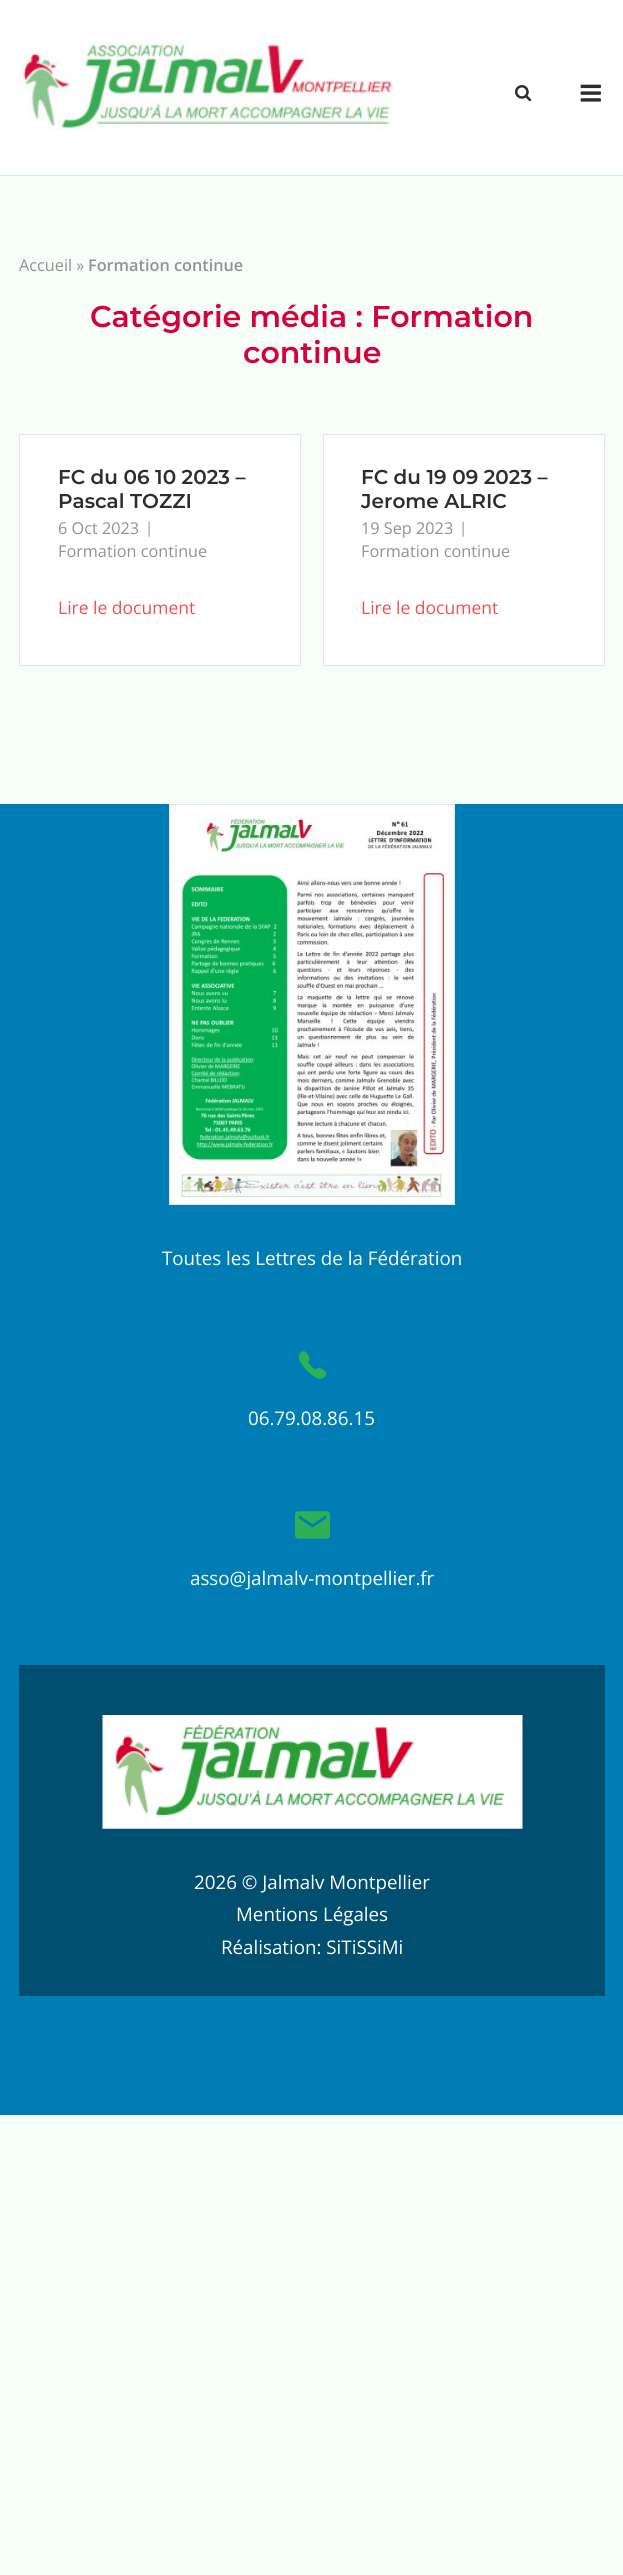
#include <cairo.h>
#include <math.h>
#include <stddef.h>


static void set_color(cairo_t *cr, unsigned color) {
    cairo_set_source_rgb(cr, (color >> 16) / 255.0, (color >> 8 & 255) / 255.0, (color & 255) / 255.0);
}

static void draw_text(cairo_t *cr, double x, double y, const char *s, const char *family, double size, int italic, int bold, unsigned color) {
    cairo_select_font_face(cr, family, italic ? CAIRO_FONT_SLANT_ITALIC : CAIRO_FONT_SLANT_NORMAL,
        bold ? CAIRO_FONT_WEIGHT_BOLD : CAIRO_FONT_WEIGHT_NORMAL);
    cairo_set_font_size(cr, size);
    set_color(cr, color);
    cairo_move_to(cr, x, y);
    cairo_show_text(cr, s);
}

static void fill_rect(cairo_t *cr, double x, double y, double w, double h, unsigned color) {
    set_color(cr, color);
    cairo_rectangle(cr, x, y, w, h);
    cairo_fill(cr);
}

static void draw_image(cairo_t *cr, const char *path, double x, double y, double w, double h) {
    cairo_surface_t *image = cairo_image_surface_create_from_png(path);
    cairo_save(cr);
    cairo_set_source_surface(cr, image, x, y);
    cairo_rectangle(cr, x, y, w, h);
    cairo_fill(cr);
    cairo_restore(cr);
    cairo_surface_destroy(image);
}

int main(void) {
    cairo_surface_t *surface = cairo_image_surface_create(CAIRO_FORMAT_RGB24, 623, 2575);
    cairo_t *cr = cairo_create(surface);
    cairo_font_options_t *options = cairo_font_options_create();
    cairo_font_options_set_hint_metrics(options, CAIRO_HINT_METRICS_OFF);
    cairo_font_options_set_hint_style(options, CAIRO_HINT_STYLE_NONE);
    cairo_set_font_options(cr, options);
    cairo_set_miter_limit(cr, 4);
    set_color(cr, 0xF7FDF9);
    cairo_paint(cr);
    fill_rect(cr, 0, 0, 623, 175, 0xFFFFFF);
    fill_rect(cr, 0, 175, 623, 1, 0xD2F4DD);
    draw_image(cr, "assets/img1.png", 19, 41, 375, 90);
    draw_image(cr, "assets/img2.png", 515, 85, 17, 16);
    draw_image(cr, "assets/img3.png", 580, 84, 21, 18);
    draw_text(cr, 19, 271, "Accueil »", "Open Sans", 16.25, 0, 0, 0x929292);
    draw_text(cr, 88, 271, "Formation continue", "Open Sans SemiBold", 16.25, 0, 0, 0x929292);
    draw_text(cr, 90, 327, "Catégorie média : Formation", "Montserrat SemiBold", 30, 0, 0, 0xD5003C);
    draw_text(cr, 243, 363, "continue", "Montserrat SemiBold", 30, 0, 0, 0xD5003C);
    set_color(cr, 0xFFFFFF);
    cairo_rectangle(cr, 19.5, 434.5, 281, 231);
    cairo_fill_preserve(cr);
    set_color(cr, 0xE6E6E6);
    cairo_set_line_width(cr, 1);
    cairo_stroke(cr);
    draw_text(cr, 58, 484, "FC du 06 10 2023 –", "Montserrat SemiBold", 20, 0, 0, 0x2D2D2D);
    draw_text(cr, 58, 508, "Pascal TOZZI", "Montserrat SemiBold", 20, 0, 0, 0x2D2D2D);
    draw_text(cr, 58, 534, "6 Oct 2023", "Open Sans", 16.25, 0, 0, 0x929292);
    draw_text(cr, 145, 533, "|", "Open Sans", 15, 0, 0, 0x929292);
    draw_text(cr, 58, 557, "Formation continue", "Open Sans", 16.25, 0, 0, 0x929292);
    draw_text(cr, 58, 614, "Lire le document", "Open Sans", 17.5, 0, 0, 0xF14E4E);
    set_color(cr, 0xFFFFFF);
    cairo_rectangle(cr, 323.5, 434.5, 281, 231);
    cairo_fill_preserve(cr);
    set_color(cr, 0xE6E6E6);
    cairo_stroke(cr);
    draw_text(cr, 361, 484, "FC du 19 09 2023 –", "Montserrat SemiBold", 20, 0, 0, 0x2D2D2D);
    draw_text(cr, 361, 508, "Jerome ALRIC", "Montserrat SemiBold", 20, 0, 0, 0x2D2D2D);
    draw_text(cr, 361, 534, "19 Sep 2023", "Open Sans", 16.25, 0, 0, 0x929292);
    draw_text(cr, 459, 533, "|", "Open Sans", 15, 0, 0, 0x929292);
    draw_text(cr, 361, 557, "Formation continue", "Open Sans", 16.25, 0, 0, 0x929292);
    draw_text(cr, 361, 614, "Lire le document", "Open Sans", 17.5, 0, 0, 0xF14E4E);
    fill_rect(cr, 0, 804, 623, 1311, 0x007DB5);
    set_color(cr, 0xFFFFFF);
    cairo_rectangle(cr, 169.5, 804.5, 285, 400);
    cairo_fill_preserve(cr);
    set_color(cr, 0xE6E6E6);
    cairo_stroke(cr);
    draw_image(cr, "assets/img4.png", 170, 818, 281, 386);
    draw_text(cr, 162, 1265, "Toutes les Lettres de la Fédération", "Open Sans", 18.75, 0, 0, 0xFFFFFF);
    draw_image(cr, "assets/img5.png", 298, 1351, 29, 28);
    draw_text(cr, 248, 1425, "06.79.08.86.15", "Open Sans", 18.75, 0, 0, 0xFFFFFF);
    draw_image(cr, "assets/img6.png", 295, 1511, 35, 28);
    draw_text(cr, 190, 1585, "asso@jalmalv-montpellier.fr", "Open Sans", 18.75, 0, 0, 0xFFFFFF);
    fill_rect(cr, 19, 1665, 586, 331, 0x004E70);
    draw_image(cr, "assets/img7.png", 102, 1715, 421, 114);
    draw_text(cr, 194, 1889, "2026 © Jalmalv Montpellier", "Open Sans", 18.75, 0, 0, 0xFFFFFF);
    draw_text(cr, 236, 1921, "Mentions Légales", "Open Sans", 18.75, 0, 0, 0xFFFFFF);
    draw_text(cr, 221, 1954, "Réalisation: SiTiSSiMi", "Open Sans", 18.75, 0, 0, 0xFFFFFF);
    cairo_surface_write_to_png(surface, "output.png");
    cairo_font_options_destroy(options);
    cairo_destroy(cr);
    cairo_surface_destroy(surface);
    return 0;
}
